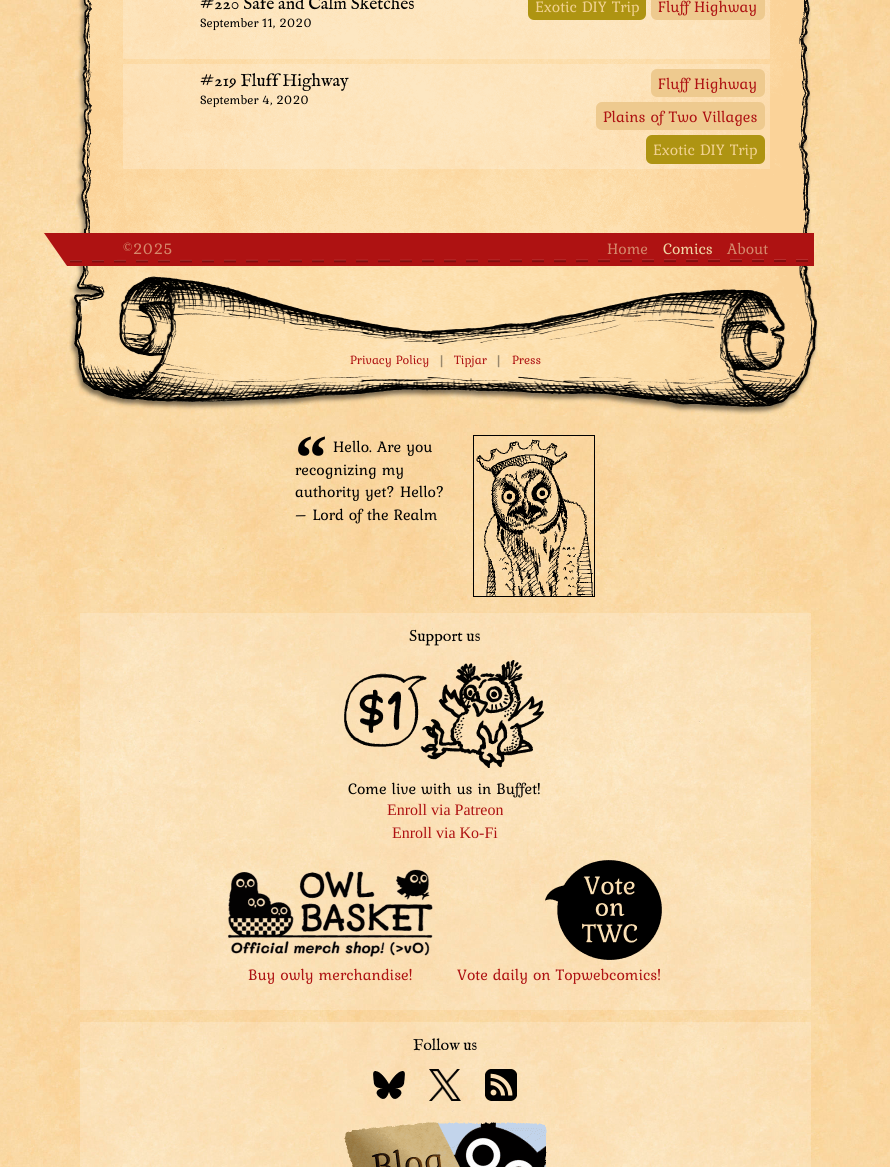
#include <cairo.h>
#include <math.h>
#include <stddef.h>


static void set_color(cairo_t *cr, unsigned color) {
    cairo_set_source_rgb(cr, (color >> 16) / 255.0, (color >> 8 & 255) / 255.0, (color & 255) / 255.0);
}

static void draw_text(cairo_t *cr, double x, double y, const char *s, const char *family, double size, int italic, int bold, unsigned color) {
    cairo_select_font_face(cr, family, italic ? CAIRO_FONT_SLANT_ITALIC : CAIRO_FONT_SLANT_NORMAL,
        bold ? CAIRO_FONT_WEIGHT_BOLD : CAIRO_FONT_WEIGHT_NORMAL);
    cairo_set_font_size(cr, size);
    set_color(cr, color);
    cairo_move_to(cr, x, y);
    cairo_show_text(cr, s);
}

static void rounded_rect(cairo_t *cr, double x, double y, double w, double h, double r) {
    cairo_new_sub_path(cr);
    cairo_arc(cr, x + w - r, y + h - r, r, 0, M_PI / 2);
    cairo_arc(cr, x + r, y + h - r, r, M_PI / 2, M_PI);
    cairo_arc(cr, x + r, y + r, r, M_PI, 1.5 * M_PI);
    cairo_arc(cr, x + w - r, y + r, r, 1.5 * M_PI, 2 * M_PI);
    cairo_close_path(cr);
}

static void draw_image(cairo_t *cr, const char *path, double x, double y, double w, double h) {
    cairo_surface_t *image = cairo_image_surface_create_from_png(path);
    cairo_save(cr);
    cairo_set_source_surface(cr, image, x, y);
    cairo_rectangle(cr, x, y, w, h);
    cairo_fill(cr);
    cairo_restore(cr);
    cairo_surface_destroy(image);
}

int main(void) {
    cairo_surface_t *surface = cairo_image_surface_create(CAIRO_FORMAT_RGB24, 890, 1167);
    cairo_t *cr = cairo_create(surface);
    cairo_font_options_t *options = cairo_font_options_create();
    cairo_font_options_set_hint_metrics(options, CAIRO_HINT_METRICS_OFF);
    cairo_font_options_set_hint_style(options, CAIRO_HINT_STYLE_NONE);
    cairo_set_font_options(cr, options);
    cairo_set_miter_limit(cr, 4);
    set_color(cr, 0xFFFFFF);
    cairo_paint(cr);
    draw_image(cr, "assets/img1.png", 0, 0, 890, 1167);
    draw_image(cr, "assets/img2.png", 76, 0, 735, 272);
    cairo_set_source_rgba(cr, 1, 1, 1, 0.2);
    cairo_rectangle(cr, 123, 0, 647, 59);
    cairo_fill(cr);
    draw_text(cr, 200, 9, "#220 Safe and Calm Sketches", "IM FELL English", 17.6, 0, 0, 0x000000);
    draw_text(cr, 200, 27, "September 11, 2020", "Kurale", 12.75, 0, 0, 0x000000);
    set_color(cr, 0xAE9412);
    rounded_rect(cr, 528, -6, 118, 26, 6);
    cairo_fill(cr);
    draw_text(cr, 535, 12, "Exotic DIY Trip", "Kurale", 16, 0, 0, 0xF1D190);
    set_color(cr, 0xEECA8F);
    rounded_rect(cr, 651, -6, 114, 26, 6);
    cairo_fill(cr);
    draw_text(cr, 658, 12, "Fluff Highway", "Kurale", 16, 0, 0, 0xAE1212);
    cairo_set_source_rgba(cr, 1, 1, 1, 0.2);
    cairo_rectangle(cr, 123, 64, 647, 105);
    cairo_fill(cr);
    draw_text(cr, 200, 86, "#219 Fluff Highway", "IM FELL English", 17.6, 0, 0, 0x000000);
    draw_text(cr, 200, 104, "September 4, 2020", "Kurale", 12.75, 0, 0, 0x000000);
    set_color(cr, 0xEECA8F);
    rounded_rect(cr, 651, 69, 114, 28, 6);
    cairo_fill(cr);
    draw_text(cr, 658, 89, "Fluff Highway", "Kurale", 16, 0, 0, 0xAE1212);
    set_color(cr, 0xEECA8F);
    rounded_rect(cr, 596, 102, 169, 28, 6);
    cairo_fill(cr);
    draw_text(cr, 603, 122, "Plains of Two Villages", "Kurale", 16, 0, 0, 0xAE1212);
    set_color(cr, 0xAE9412);
    rounded_rect(cr, 646, 135, 119, 29, 6);
    cairo_fill(cr);
    draw_text(cr, 653, 155, "Exotic DIY Trip", "Kurale", 16, 0, 0, 0xF1D190);
    draw_image(cr, "assets/img3.png", 69, 266, 749, 149);
    cairo_save(cr);
    cairo_rectangle(cr, 44, 233, 770, 33);
    cairo_clip(cr);
    set_color(cr, 0xAE1212);
    cairo_new_path(cr);
    cairo_move_to(cr, 44, 233);
    cairo_line_to(cr, 67, 266);
    cairo_line_to(cr, 832, 266);
    cairo_line_to(cr, 855, 233);
    cairo_close_path(cr);
    cairo_fill(cr);
    cairo_new_path(cr);
    cairo_move_to(cr, 830, 260);
    cairo_line_to(cr, 65.5, 260.5);
    set_color(cr, 0xC14C4B);
    cairo_set_line_width(cr, 1);
    cairo_set_dash(cr, (double[]){12, 10}, 2, 0);
    cairo_stroke(cr);
    cairo_new_path(cr);
    cairo_move_to(cr, 830, 261);
    cairo_line_to(cr, 65.5, 261.5);
    set_color(cr, 0x830D0E);
    cairo_set_line_width(cr, 2);
    cairo_stroke(cr);
    cairo_restore(cr);
    draw_text(cr, 122, 254, "©2025", "Kurale", 16, 0, 0, 0xD5886B);
    draw_text(cr, 607, 254, "Home", "Kurale", 16, 0, 0, 0xD5886B);
    draw_text(cr, 663, 254, "Comics", "Kurale", 16, 0, 0, 0xEFD7A6);
    draw_text(cr, 727, 254, "About", "Kurale", 16, 0, 0, 0xD5886B);
    draw_text(cr, 350, 364, "Privacy Policy", "Kurale", 12.75, 0, 0, 0xAE1212);
    draw_text(cr, 439, 366, "|", "Kurale", 16, 0, 0, 0x98886C);
    draw_text(cr, 454, 364, "Tipjar", "Kurale", 12.75, 0, 0, 0xAE1212);
    draw_text(cr, 496, 366, "|", "Kurale", 16, 0, 0, 0x98886C);
    draw_text(cr, 512, 364, "Press", "Kurale", 12.75, 0, 0, 0xAE1212);
    draw_text(cr, 295, 479, "“", "Liberation Serif", 64, 0, 1, 0x000000);
    draw_text(cr, 333, 452, "Hello. Are you", "Kurale", 16, 0, 0, 0x000000);
    draw_text(cr, 295, 475, "recognizing my", "Kurale", 16, 0, 0, 0x000000);
    draw_text(cr, 295, 497, "authority yet? Hello?", "Kurale", 16, 0, 0, 0x000000);
    draw_text(cr, 295, 520, "– Lord of the Realm", "Kurale", 16, 0, 0, 0x000000);
    cairo_rectangle(cr, 473.5, 435.5, 121, 161);
    cairo_set_line_width(cr, 1);
    cairo_stroke(cr);
    draw_image(cr, "assets/img4.png", 476, 439, 117, 157);
    cairo_set_source_rgba(cr, 1, 1, 1, 0.2);
    cairo_rectangle(cr, 80, 613, 731, 397);
    cairo_fill(cr);
    draw_text(cr, 409, 641, "Support us", "IM FELL English", 16, 0, 0, 0x000000);
    draw_image(cr, "assets/img5.png", 344, 660, 200, 108);
    draw_text(cr, 348, 794, "Come live with us in Buffet!", "Kurale", 16, 0, 0, 0x000000);
    draw_text(cr, 387, 815, "Enroll via Patreon", "Liberation Serif", 16, 0, 0, 0xAE1212);
    draw_text(cr, 392, 838, "Enroll via Ko-Fi", "Liberation Serif", 16, 0, 0, 0xAE1212);
    draw_image(cr, "assets/img6.png", 228, 869, 205, 88);
    draw_text(cr, 248, 980, "Buy owly merchandise!", "Kurale", 16, 0, 0, 0xAE1212);
    draw_image(cr, "assets/img7.png", 545, 860, 117, 100);
    draw_text(cr, 457, 980, "Vote daily on Topwebcomics!", "Kurale", 16, 0, 0, 0xAE1212);
    cairo_set_source_rgba(cr, 1, 1, 1, 0.2);
    cairo_rectangle(cr, 80, 1022, 731, 145);
    cairo_fill(cr);
    draw_text(cr, 413, 1050, "Follow us", "IM FELL English", 16, 0, 0, 0x000000);
    draw_image(cr, "assets/img8.png", 373, 1071, 32, 28);
    draw_image(cr, "assets/img9.png", 429, 1069, 32, 32);
    draw_image(cr, "assets/img10.png", 485, 1069, 32, 32);
    draw_image(cr, "assets/img11.png", 344, 1122, 203, 45);
    cairo_surface_write_to_png(surface, "output.png");
    cairo_font_options_destroy(options);
    cairo_destroy(cr);
    cairo_surface_destroy(surface);
    return 0;
}
